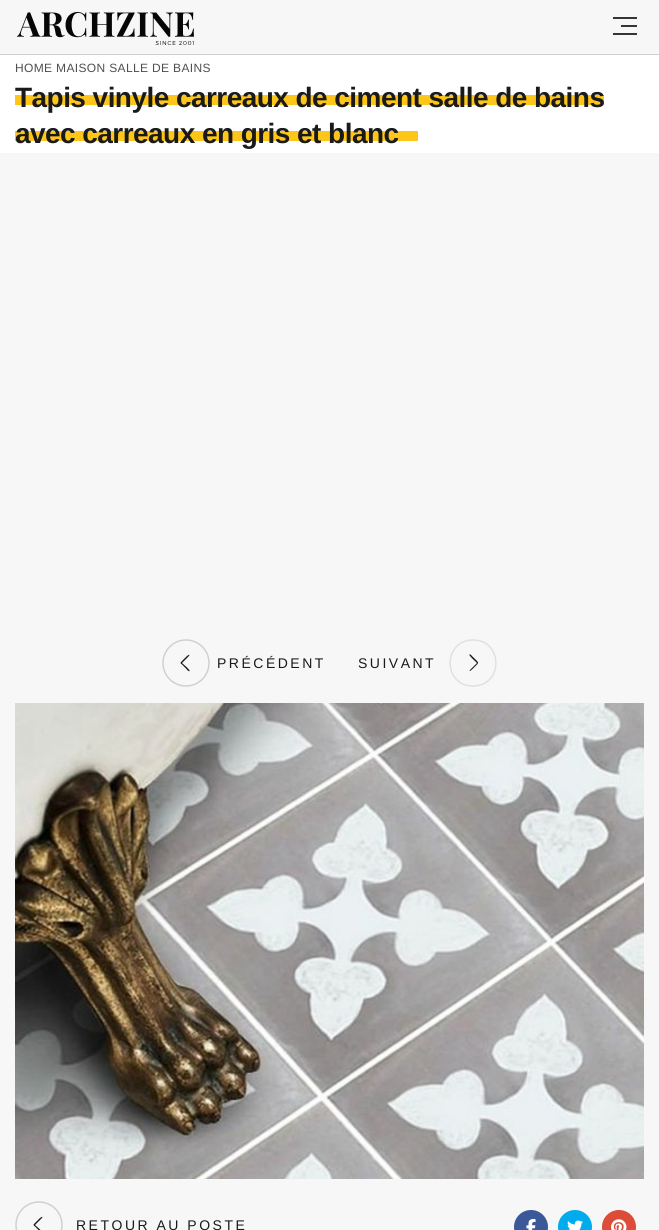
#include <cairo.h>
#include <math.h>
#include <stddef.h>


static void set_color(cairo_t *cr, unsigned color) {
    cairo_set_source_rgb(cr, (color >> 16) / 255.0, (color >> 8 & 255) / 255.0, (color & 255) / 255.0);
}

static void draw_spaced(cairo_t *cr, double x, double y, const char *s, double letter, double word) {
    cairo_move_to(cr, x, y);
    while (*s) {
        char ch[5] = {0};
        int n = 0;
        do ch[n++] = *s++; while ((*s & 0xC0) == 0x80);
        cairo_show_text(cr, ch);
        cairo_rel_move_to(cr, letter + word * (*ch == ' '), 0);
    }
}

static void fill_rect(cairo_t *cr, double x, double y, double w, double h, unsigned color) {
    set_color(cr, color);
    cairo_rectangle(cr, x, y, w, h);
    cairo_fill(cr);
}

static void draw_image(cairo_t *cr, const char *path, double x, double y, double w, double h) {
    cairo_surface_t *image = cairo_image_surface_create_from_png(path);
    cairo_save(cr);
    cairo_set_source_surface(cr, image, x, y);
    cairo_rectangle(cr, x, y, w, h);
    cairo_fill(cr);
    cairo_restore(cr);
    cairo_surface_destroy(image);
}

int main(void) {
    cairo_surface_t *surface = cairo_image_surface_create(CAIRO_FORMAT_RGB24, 659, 1230);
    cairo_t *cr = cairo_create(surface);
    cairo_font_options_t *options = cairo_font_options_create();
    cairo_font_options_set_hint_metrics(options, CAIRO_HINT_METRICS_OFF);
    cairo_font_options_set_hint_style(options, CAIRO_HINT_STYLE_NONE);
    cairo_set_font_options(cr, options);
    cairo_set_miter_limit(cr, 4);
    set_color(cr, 0xFFFFFF);
    cairo_paint(cr);
    fill_rect(cr, 0, 0, 659, 54, 0xF7F7F7);
    fill_rect(cr, 0, 54, 659, 1, 0xCFCFCF);
    draw_image(cr, "assets/img1.png", 17, 12, 177, 33);
    fill_rect(cr, 613, 17, 24, 2, 0x353535);
    fill_rect(cr, 621, 25, 16, 2, 0x353535);
    fill_rect(cr, 613, 33, 24, 2, 0x353535);
    cairo_select_font_face(cr, "Liberation Sans", CAIRO_FONT_SLANT_NORMAL, CAIRO_FONT_WEIGHT_NORMAL);
    cairo_set_font_size(cr, 12);
    set_color(cr, 0x4F4F4F);
    draw_spaced(cr, 15, 72, "HOME MAISON SALLE DE BAINS", 0.35, 0);
    fill_rect(cr, 15, 95, 589, 10, 0xFFC61A);
    cairo_select_font_face(cr, "Liberation Sans", CAIRO_FONT_SLANT_NORMAL, CAIRO_FONT_WEIGHT_BOLD);
    cairo_set_font_size(cr, 28);
    set_color(cr, 0x1A1A1A);
    draw_spaced(cr, 15, 107, "Tapis vinyle carreaux de ciment salle de bains", -0.55, 0);
    fill_rect(cr, 15, 131, 403, 10, 0xFFC61A);
    set_color(cr, 0x1A1A1A);
    draw_spaced(cr, 15, 143, "avec carreaux en gris et blanc", -0.55, 0);
    fill_rect(cr, 0, 153, 659, 1077, 0xF7F7F7);
    cairo_new_path(cr);
    cairo_arc(cr, 186, 663, 23, 0, 2 * M_PI);
    set_color(cr, 0xD0D0D0);
    cairo_set_line_width(cr, 1.5);
    cairo_stroke(cr);
    set_color(cr, 0x1A1A1A);
    cairo_set_fill_rule(cr, CAIRO_FILL_RULE_EVEN_ODD);
    cairo_new_path(cr);
    cairo_move_to(cr, 189.5, 671);
    cairo_curve_to(cr, 188.5, 672, 186.5, 669, 186, 668.5);
    cairo_line_to(cr, 182, 664.5);
    cairo_curve_to(cr, 180, 663, 180, 663, 182, 661);
    cairo_line_to(cr, 187, 656);
    cairo_curve_to(cr, 189.5, 654, 190.5, 654.5, 188, 657);
    cairo_line_to(cr, 182, 663);
    cairo_curve_to(cr, 183.5, 664.5, 190.5, 670, 189.5, 671);
    cairo_close_path(cr);
    cairo_fill(cr);
    cairo_select_font_face(cr, "Liberation Sans", CAIRO_FONT_SLANT_NORMAL, CAIRO_FONT_WEIGHT_NORMAL);
    cairo_set_font_size(cr, 14);
    draw_spaced(cr, 217, 668, "PRÉCÉDENT", 2.5, 0);
    draw_spaced(cr, 358, 668, "SUIVANT", 2.5, 0);
    cairo_new_path(cr);
    cairo_move_to(cr, 473, 686);
    cairo_curve_to(cr, 442.5, 686, 442.5, 640, 473, 640);
    cairo_curve_to(cr, 503.5, 640, 503.5, 686, 473, 686);
    cairo_close_path(cr);
    set_color(cr, 0xE0E0E0);
    cairo_stroke(cr);
    set_color(cr, 0x1A1A1A);
    cairo_new_path(cr);
    cairo_move_to(cr, 469.5, 654.5);
    cairo_curve_to(cr, 470.5, 653.5, 472.5, 657, 473, 657);
    cairo_line_to(cr, 477, 661);
    cairo_curve_to(cr, 478.5, 663, 478.5, 662.5, 477, 664.5);
    cairo_line_to(cr, 472, 669.5);
    cairo_curve_to(cr, 469.5, 672, 468.5, 671, 471, 669);
    cairo_line_to(cr, 477, 663);
    cairo_curve_to(cr, 475.5, 661.5, 468.5, 655.5, 469.5, 654.5);
    cairo_close_path(cr);
    cairo_fill(cr);
    draw_image(cr, "assets/img2.png", 15, 703, 629, 476);
    cairo_arc(cr, 39, 1225, 23, 0, 2 * M_PI);
    set_color(cr, 0xD0D0D0);
    cairo_stroke(cr);
    set_color(cr, 0x1A1A1A);
    cairo_new_path(cr);
    cairo_move_to(cr, 42.5, 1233);
    cairo_curve_to(cr, 41.5, 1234, 39.5, 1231, 39, 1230.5);
    cairo_line_to(cr, 35, 1226.5);
    cairo_curve_to(cr, 33, 1225, 33, 1225, 35, 1223);
    cairo_line_to(cr, 40, 1218);
    cairo_curve_to(cr, 42.5, 1216, 43.5, 1216.5, 41, 1219);
    cairo_line_to(cr, 35, 1225);
    cairo_curve_to(cr, 36.5, 1226.5, 43.5, 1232, 42.5, 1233);
    cairo_close_path(cr);
    cairo_fill(cr);
    draw_spaced(cr, 76, 1230, "RETOUR AU POSTE", 2.5, 0);
    set_color(cr, 0x3B5998);
    cairo_new_path(cr);
    cairo_arc(cr, 531, 1227, 17, 0, 2 * M_PI);
    cairo_fill(cr);
    draw_image(cr, "assets/img3.png", 526, 1219, 10, 11);
    set_color(cr, 0x00ACED);
    cairo_arc(cr, 575, 1227, 17, 0, 2 * M_PI);
    cairo_fill(cr);
    draw_image(cr, "assets/img4.png", 567, 1220, 16, 10);
    set_color(cr, 0xDD4B39);
    cairo_arc(cr, 619, 1227, 17, 0, 2 * M_PI);
    cairo_fill(cr);
    draw_image(cr, "assets/img5.png", 611, 1219, 16, 11);
    cairo_surface_write_to_png(surface, "output.png");
    cairo_font_options_destroy(options);
    cairo_destroy(cr);
    cairo_surface_destroy(surface);
    return 0;
}
